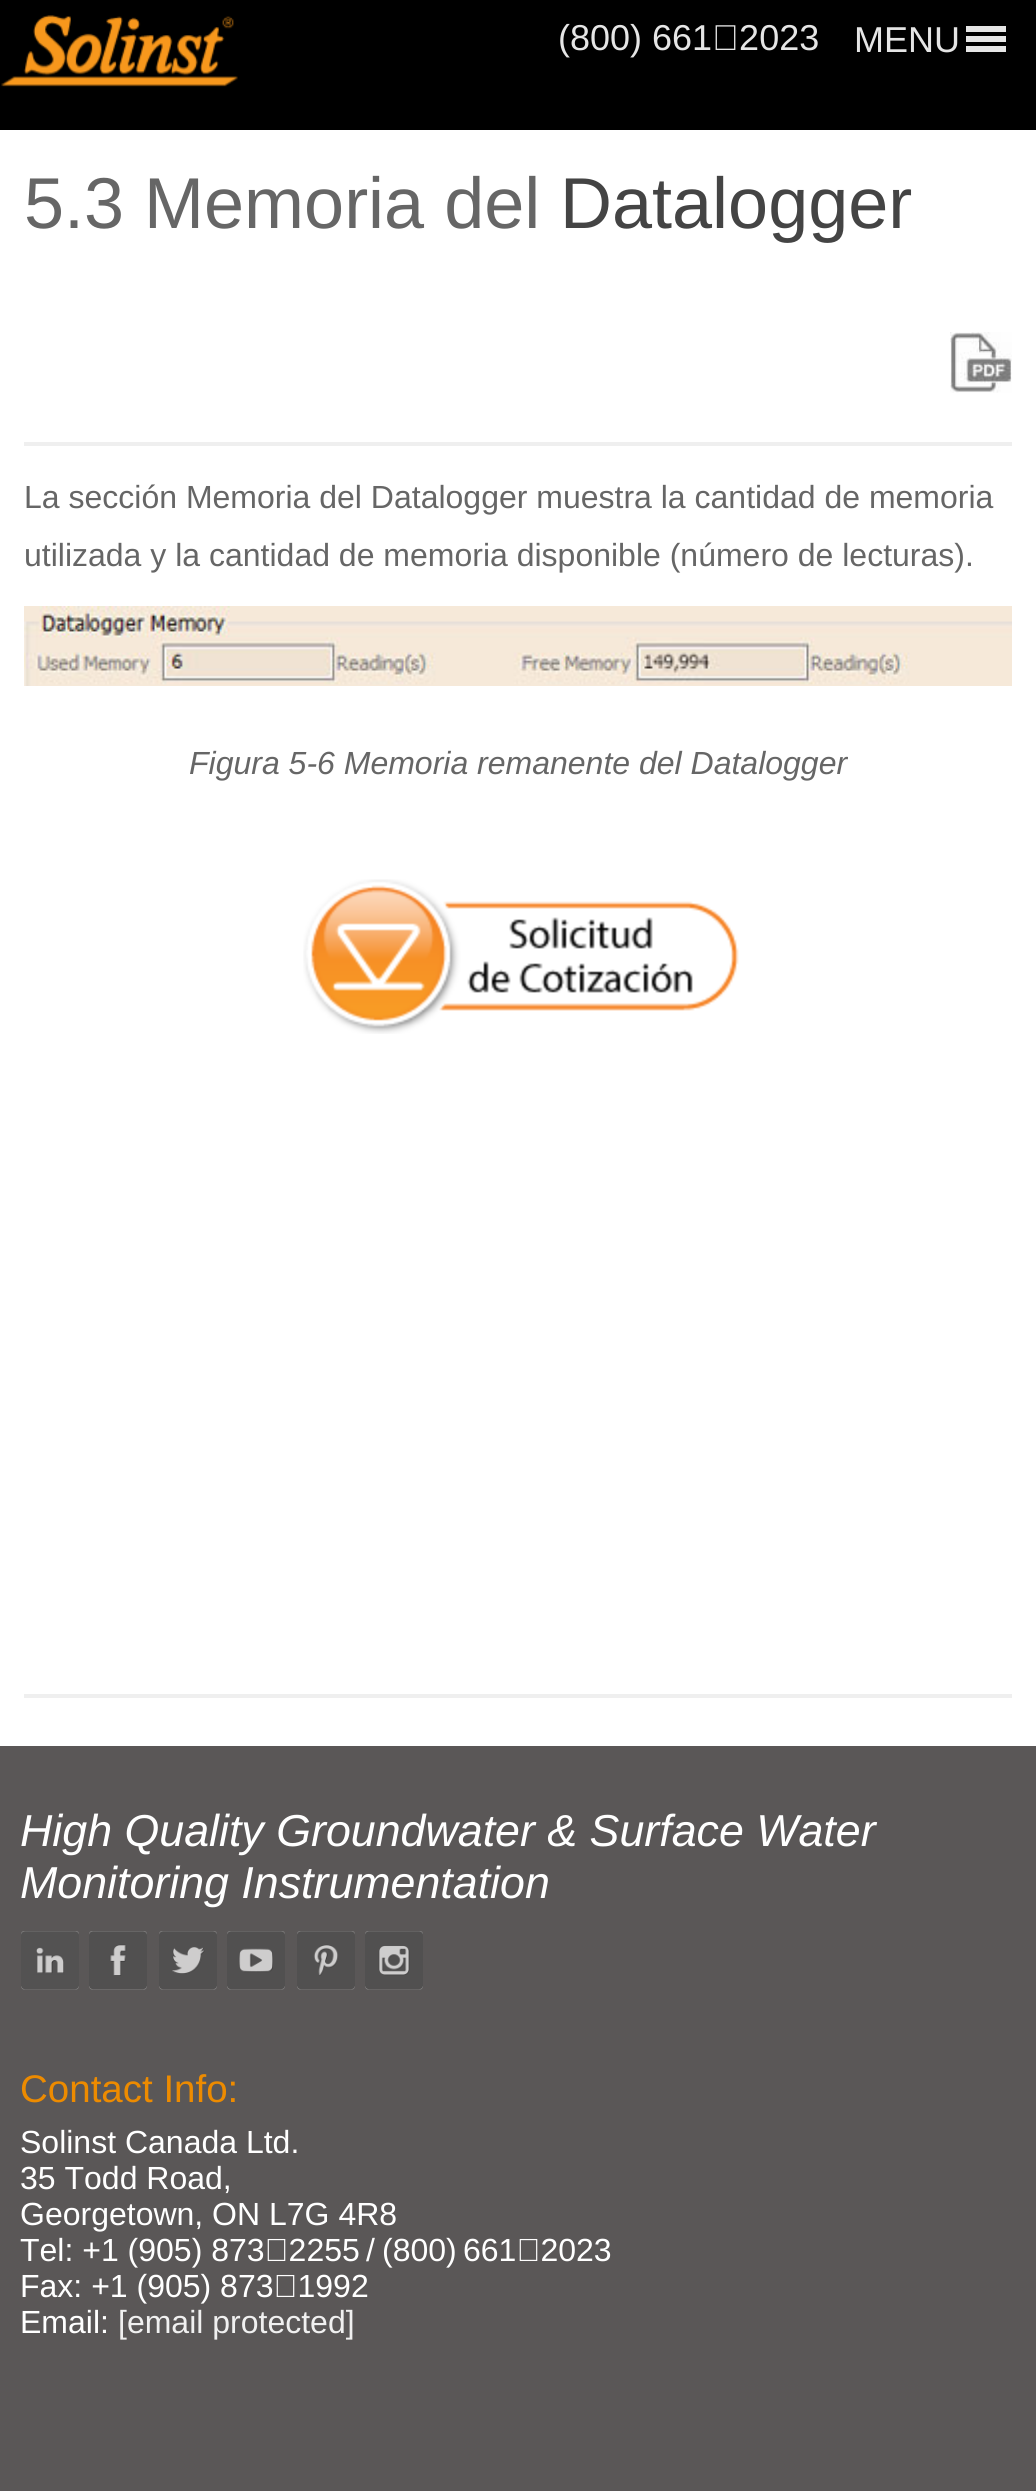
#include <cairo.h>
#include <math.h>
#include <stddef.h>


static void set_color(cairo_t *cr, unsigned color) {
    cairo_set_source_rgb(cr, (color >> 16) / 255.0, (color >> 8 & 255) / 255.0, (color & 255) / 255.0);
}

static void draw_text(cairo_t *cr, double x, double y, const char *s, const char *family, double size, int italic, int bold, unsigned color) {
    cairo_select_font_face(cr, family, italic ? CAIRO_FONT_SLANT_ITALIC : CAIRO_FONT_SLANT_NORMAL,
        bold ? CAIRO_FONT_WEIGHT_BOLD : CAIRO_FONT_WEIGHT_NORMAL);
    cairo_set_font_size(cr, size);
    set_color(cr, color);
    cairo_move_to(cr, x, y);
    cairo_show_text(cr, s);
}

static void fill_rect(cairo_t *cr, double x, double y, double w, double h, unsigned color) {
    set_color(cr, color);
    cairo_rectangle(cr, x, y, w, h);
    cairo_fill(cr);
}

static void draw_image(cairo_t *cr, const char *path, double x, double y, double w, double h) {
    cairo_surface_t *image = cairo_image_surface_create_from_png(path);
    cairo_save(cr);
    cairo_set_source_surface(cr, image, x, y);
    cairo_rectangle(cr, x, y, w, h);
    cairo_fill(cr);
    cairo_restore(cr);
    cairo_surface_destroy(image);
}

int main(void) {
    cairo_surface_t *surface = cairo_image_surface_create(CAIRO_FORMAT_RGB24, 1036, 2491);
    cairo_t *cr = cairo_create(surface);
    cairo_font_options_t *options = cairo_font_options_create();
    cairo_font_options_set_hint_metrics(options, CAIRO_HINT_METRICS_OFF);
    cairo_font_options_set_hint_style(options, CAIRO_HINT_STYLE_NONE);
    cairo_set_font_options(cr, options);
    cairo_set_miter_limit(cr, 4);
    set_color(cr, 0xFFFFFF);
    cairo_paint(cr);
    fill_rect(cr, 0, 0, 1036, 130, 0x000000);
    draw_image(cr, "assets/img1.png", 1, 15, 237, 72);
    draw_text(cr, 558, 50, "(800) 661‑2023", "Liberation Sans", 36, 0, 0, 0xE5E5E5);
    draw_text(cr, 854, 52, "MENU", "Liberation Sans", 36, 0, 0, 0xE5E5E5);
    fill_rect(cr, 966, 26, 40, 6, 0xE6E6E6);
    fill_rect(cr, 966, 36, 40, 6, 0xE6E6E6);
    fill_rect(cr, 966, 46, 40, 6, 0xE6E6E6);
    draw_text(cr, 24, 228, "5.3 Memoria del", "Liberation Sans", 72, 0, 0, 0x666666);
    draw_text(cr, 560, 228, "Datalogger", "Liberation Sans", 72, 0, 0, 0x444444);
    draw_image(cr, "assets/img2.png", 950, 332, 62, 61);
    fill_rect(cr, 24, 442, 988, 4, 0xEFEFEF);
    draw_text(cr, 24, 508, "La sección Memoria del Datalogger muestra la cantidad de memoria", "Liberation Sans", 32, 0, 0, 0x666666);
    draw_text(cr, 24, 566, "utilizada y la cantidad de memoria disponible (número de lecturas).", "Liberation Sans", 32, 0, 0, 0x666666);
    draw_image(cr, "assets/img3.png", 24, 606, 988, 80);
    draw_text(cr, 189, 774, "Figura 5-6 Memoria remanente del Datalogger", "Liberation Sans", 32, 1, 0, 0x666666);
    draw_image(cr, "assets/img4.png", 303, 879, 436, 155);
    fill_rect(cr, 24, 1694, 988, 4, 0xEFEFEF);
    fill_rect(cr, 0, 1746, 1036, 745, 0x5A5757);
    draw_text(cr, 20, 1846, "High Quality Groundwater & Surface Water", "Liberation Sans", 44.75, 1, 0, 0xFFFFFF);
    draw_text(cr, 20, 1898, "Monitoring Instrumentation", "Liberation Sans", 44.75, 1, 0, 0xFFFFFF);
    draw_image(cr, "assets/img5.png", 21, 1931, 58, 59);
    draw_image(cr, "assets/img6.png", 89, 1931, 58, 59);
    draw_image(cr, "assets/img7.png", 159, 1931, 58, 59);
    draw_image(cr, "assets/img8.png", 227, 1931, 58, 59);
    draw_image(cr, "assets/img9.png", 297, 1931, 58, 59);
    draw_image(cr, "assets/img10.png", 365, 1931, 58, 59);
    draw_text(cr, 20, 2102, "Contact Info:", "Liberation Sans", 38.5, 0, 0, 0xED8B00);
    draw_text(cr, 20, 2153, "Solinst Canada Ltd.", "Liberation Sans", 32, 0, 0, 0xFFFFFF);
    draw_text(cr, 20, 2189, "35 Todd Road,", "Liberation Sans", 32, 0, 0, 0xFFFFFF);
    draw_text(cr, 20, 2225, "Georgetown, ON L7G 4R8", "Liberation Sans", 32, 0, 0, 0xFFFFFF);
    draw_text(cr, 20, 2261, "Tel: +1 (905) 873‑2255", "Liberation Sans", 32, 0, 0, 0xFFFFFF);
    draw_text(cr, 366, 2261, "/", "Liberation Sans", 32, 0, 0, 0xFFFFFF);
    draw_text(cr, 382, 2261, "(800)", "Liberation Sans", 32, 0, 0, 0xFFFFFF);
    draw_text(cr, 463, 2261, "661‑2023", "Liberation Sans", 32, 0, 0, 0xFFFFFF);
    draw_text(cr, 20, 2297, "Fax: +1 (905) 873‑1992", "Liberation Sans", 32, 0, 0, 0xFFFFFF);
    draw_text(cr, 20, 2333, "Email:", "Liberation Sans", 32, 0, 0, 0xFFFFFF);
    draw_text(cr, 118, 2333, "[email protected]", "Liberation Sans", 32, 0, 0, 0xF0F0F0);
    cairo_surface_write_to_png(surface, "output.png");
    cairo_font_options_destroy(options);
    cairo_destroy(cr);
    cairo_surface_destroy(surface);
    return 0;
}
